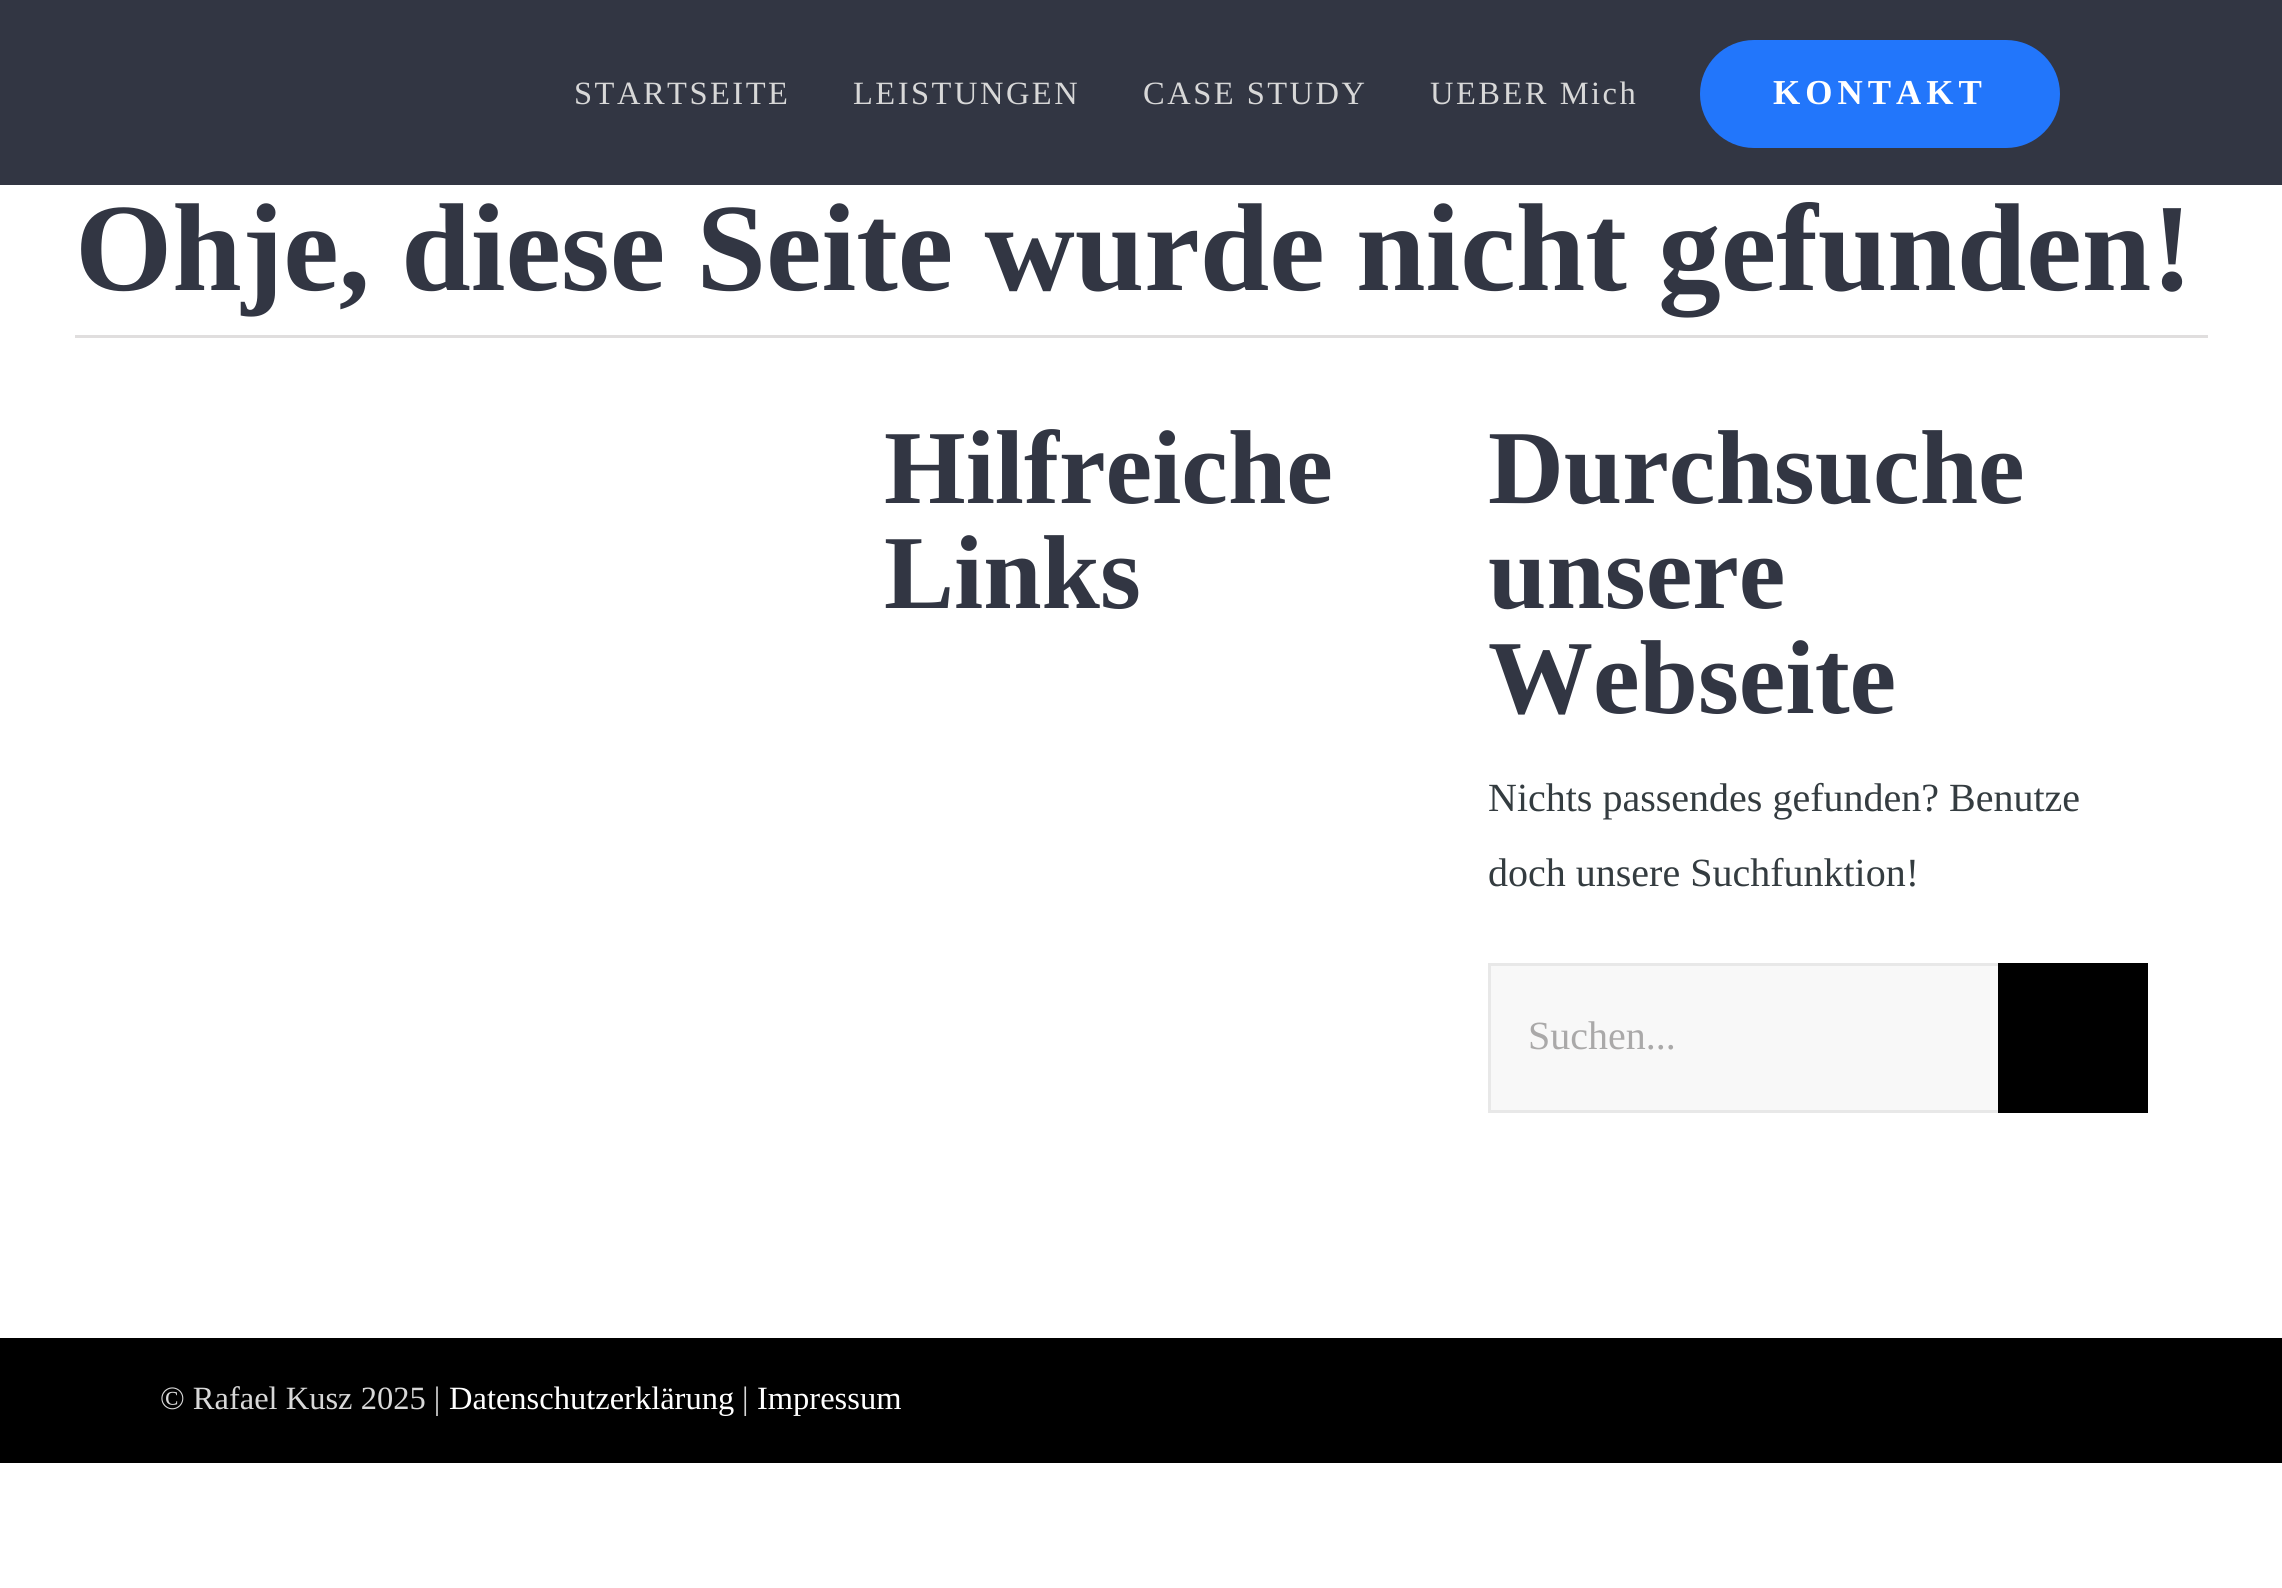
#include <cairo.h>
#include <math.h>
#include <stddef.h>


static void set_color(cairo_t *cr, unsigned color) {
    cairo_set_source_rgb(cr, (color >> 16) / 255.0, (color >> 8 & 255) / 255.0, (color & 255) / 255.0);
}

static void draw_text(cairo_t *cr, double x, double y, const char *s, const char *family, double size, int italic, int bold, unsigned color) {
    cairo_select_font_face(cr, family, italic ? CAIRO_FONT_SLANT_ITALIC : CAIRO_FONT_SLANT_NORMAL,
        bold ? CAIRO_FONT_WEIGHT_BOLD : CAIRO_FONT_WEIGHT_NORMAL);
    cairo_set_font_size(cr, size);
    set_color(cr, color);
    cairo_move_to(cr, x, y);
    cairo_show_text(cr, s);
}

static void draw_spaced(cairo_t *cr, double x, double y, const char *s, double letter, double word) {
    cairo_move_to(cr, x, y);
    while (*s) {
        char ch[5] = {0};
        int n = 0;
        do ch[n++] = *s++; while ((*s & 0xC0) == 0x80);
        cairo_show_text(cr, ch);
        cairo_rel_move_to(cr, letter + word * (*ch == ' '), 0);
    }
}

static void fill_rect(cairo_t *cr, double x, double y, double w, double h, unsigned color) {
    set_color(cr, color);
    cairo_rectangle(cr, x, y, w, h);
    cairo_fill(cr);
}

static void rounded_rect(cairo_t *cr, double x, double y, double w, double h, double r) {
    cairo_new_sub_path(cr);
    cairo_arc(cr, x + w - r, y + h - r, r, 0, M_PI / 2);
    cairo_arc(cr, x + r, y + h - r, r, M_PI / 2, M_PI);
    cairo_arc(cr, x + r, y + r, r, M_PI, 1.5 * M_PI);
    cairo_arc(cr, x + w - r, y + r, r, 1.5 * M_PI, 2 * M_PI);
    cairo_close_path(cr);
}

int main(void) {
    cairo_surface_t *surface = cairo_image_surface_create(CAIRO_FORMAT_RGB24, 2282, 1588);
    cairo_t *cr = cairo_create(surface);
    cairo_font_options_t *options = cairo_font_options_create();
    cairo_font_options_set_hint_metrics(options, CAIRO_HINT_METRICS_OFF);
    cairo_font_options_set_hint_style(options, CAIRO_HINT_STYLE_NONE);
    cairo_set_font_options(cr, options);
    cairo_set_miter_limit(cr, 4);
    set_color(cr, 0xFFFFFF);
    cairo_paint(cr);
    fill_rect(cr, 0, 0, 2282, 185, 0x323643);
    cairo_select_font_face(cr, "Liberation Serif", CAIRO_FONT_SLANT_NORMAL, CAIRO_FONT_WEIGHT_NORMAL);
    cairo_set_font_size(cr, 32.5);
    set_color(cr, 0xD8D8D8);
    draw_spaced(cr, 574, 104, "STARTSEITE", 2.5, 0);
    draw_spaced(cr, 853, 104, "LEISTUNGEN", 2.5, 0);
    draw_spaced(cr, 1143, 104, "CASE STUDY", 2.5, 0);
    draw_spaced(cr, 1430, 104, "UEBER Mich", 2.5, 0);
    set_color(cr, 0x2276FB);
    rounded_rect(cr, 1700, 40, 360, 108, 54);
    cairo_fill(cr);
    cairo_select_font_face(cr, "Liberation Serif", CAIRO_FONT_SLANT_NORMAL, CAIRO_FONT_WEIGHT_BOLD);
    cairo_set_font_size(cr, 35);
    set_color(cr, 0xFFFFFF);
    draw_spaced(cr, 1773, 104, "KONTAKT", 5, 0);
    fill_rect(cr, 75, 335, 2133, 3, 0xE0DEDE);
    draw_text(cr, 75, 290, "Ohje, diese Seite wurde nicht gefunden!", "Liberation Serif", 125, 0, 1, 0x323643);
    draw_text(cr, 884, 503, "Hilfreiche", "Liberation Serif", 105, 0, 1, 0x323643);
    draw_text(cr, 884, 608, "Links", "Liberation Serif", 105, 0, 1, 0x323643);
    draw_text(cr, 1488, 503, "Durchsuche", "Liberation Serif", 105, 0, 1, 0x323643);
    draw_text(cr, 1488, 608, "unsere", "Liberation Serif", 105, 0, 1, 0x323643);
    draw_text(cr, 1488, 713, "Webseite", "Liberation Serif", 105, 0, 1, 0x323643);
    draw_text(cr, 1488, 811, "Nichts passendes gefunden? Benutze", "Liberation Serif", 40, 0, 0, 0x343C40);
    draw_text(cr, 1488, 886, "doch unsere Suchfunktion!", "Liberation Serif", 40, 0, 0, 0x343C40);
    fill_rect(cr, 1491, 966, 507, 144, 0xF8F8F8);
    fill_rect(cr, 1488, 963, 510, 3, 0xE8E8E8);
    fill_rect(cr, 1488, 1110, 510, 3, 0xE8E8E8);
    fill_rect(cr, 1488, 963, 3, 150, 0xE8E8E8);
    draw_text(cr, 1528, 1049, "Suchen...", "Liberation Serif", 40, 0, 0, 0xAAA9A9);
    fill_rect(cr, 1998, 963, 150, 150, 0x000000);
    fill_rect(cr, 0, 1338, 2282, 125, 0x000000);
    draw_text(cr, 160, 1409, "© Rafael Kusz 2025 |", "Liberation Serif", 32.5, 0, 0, 0xD8D8D8);
    draw_text(cr, 449, 1409, "Datenschutzerklärung", "Liberation Serif", 32.5, 0, 0, 0xFFFFFF);
    draw_text(cr, 742, 1409, "|", "Liberation Serif", 32.5, 0, 0, 0xD8D8D8);
    draw_text(cr, 757, 1409, "Impressum", "Liberation Serif", 32.5, 0, 0, 0xFFFFFF);
    cairo_surface_write_to_png(surface, "output.png");
    cairo_font_options_destroy(options);
    cairo_destroy(cr);
    cairo_surface_destroy(surface);
    return 0;
}
